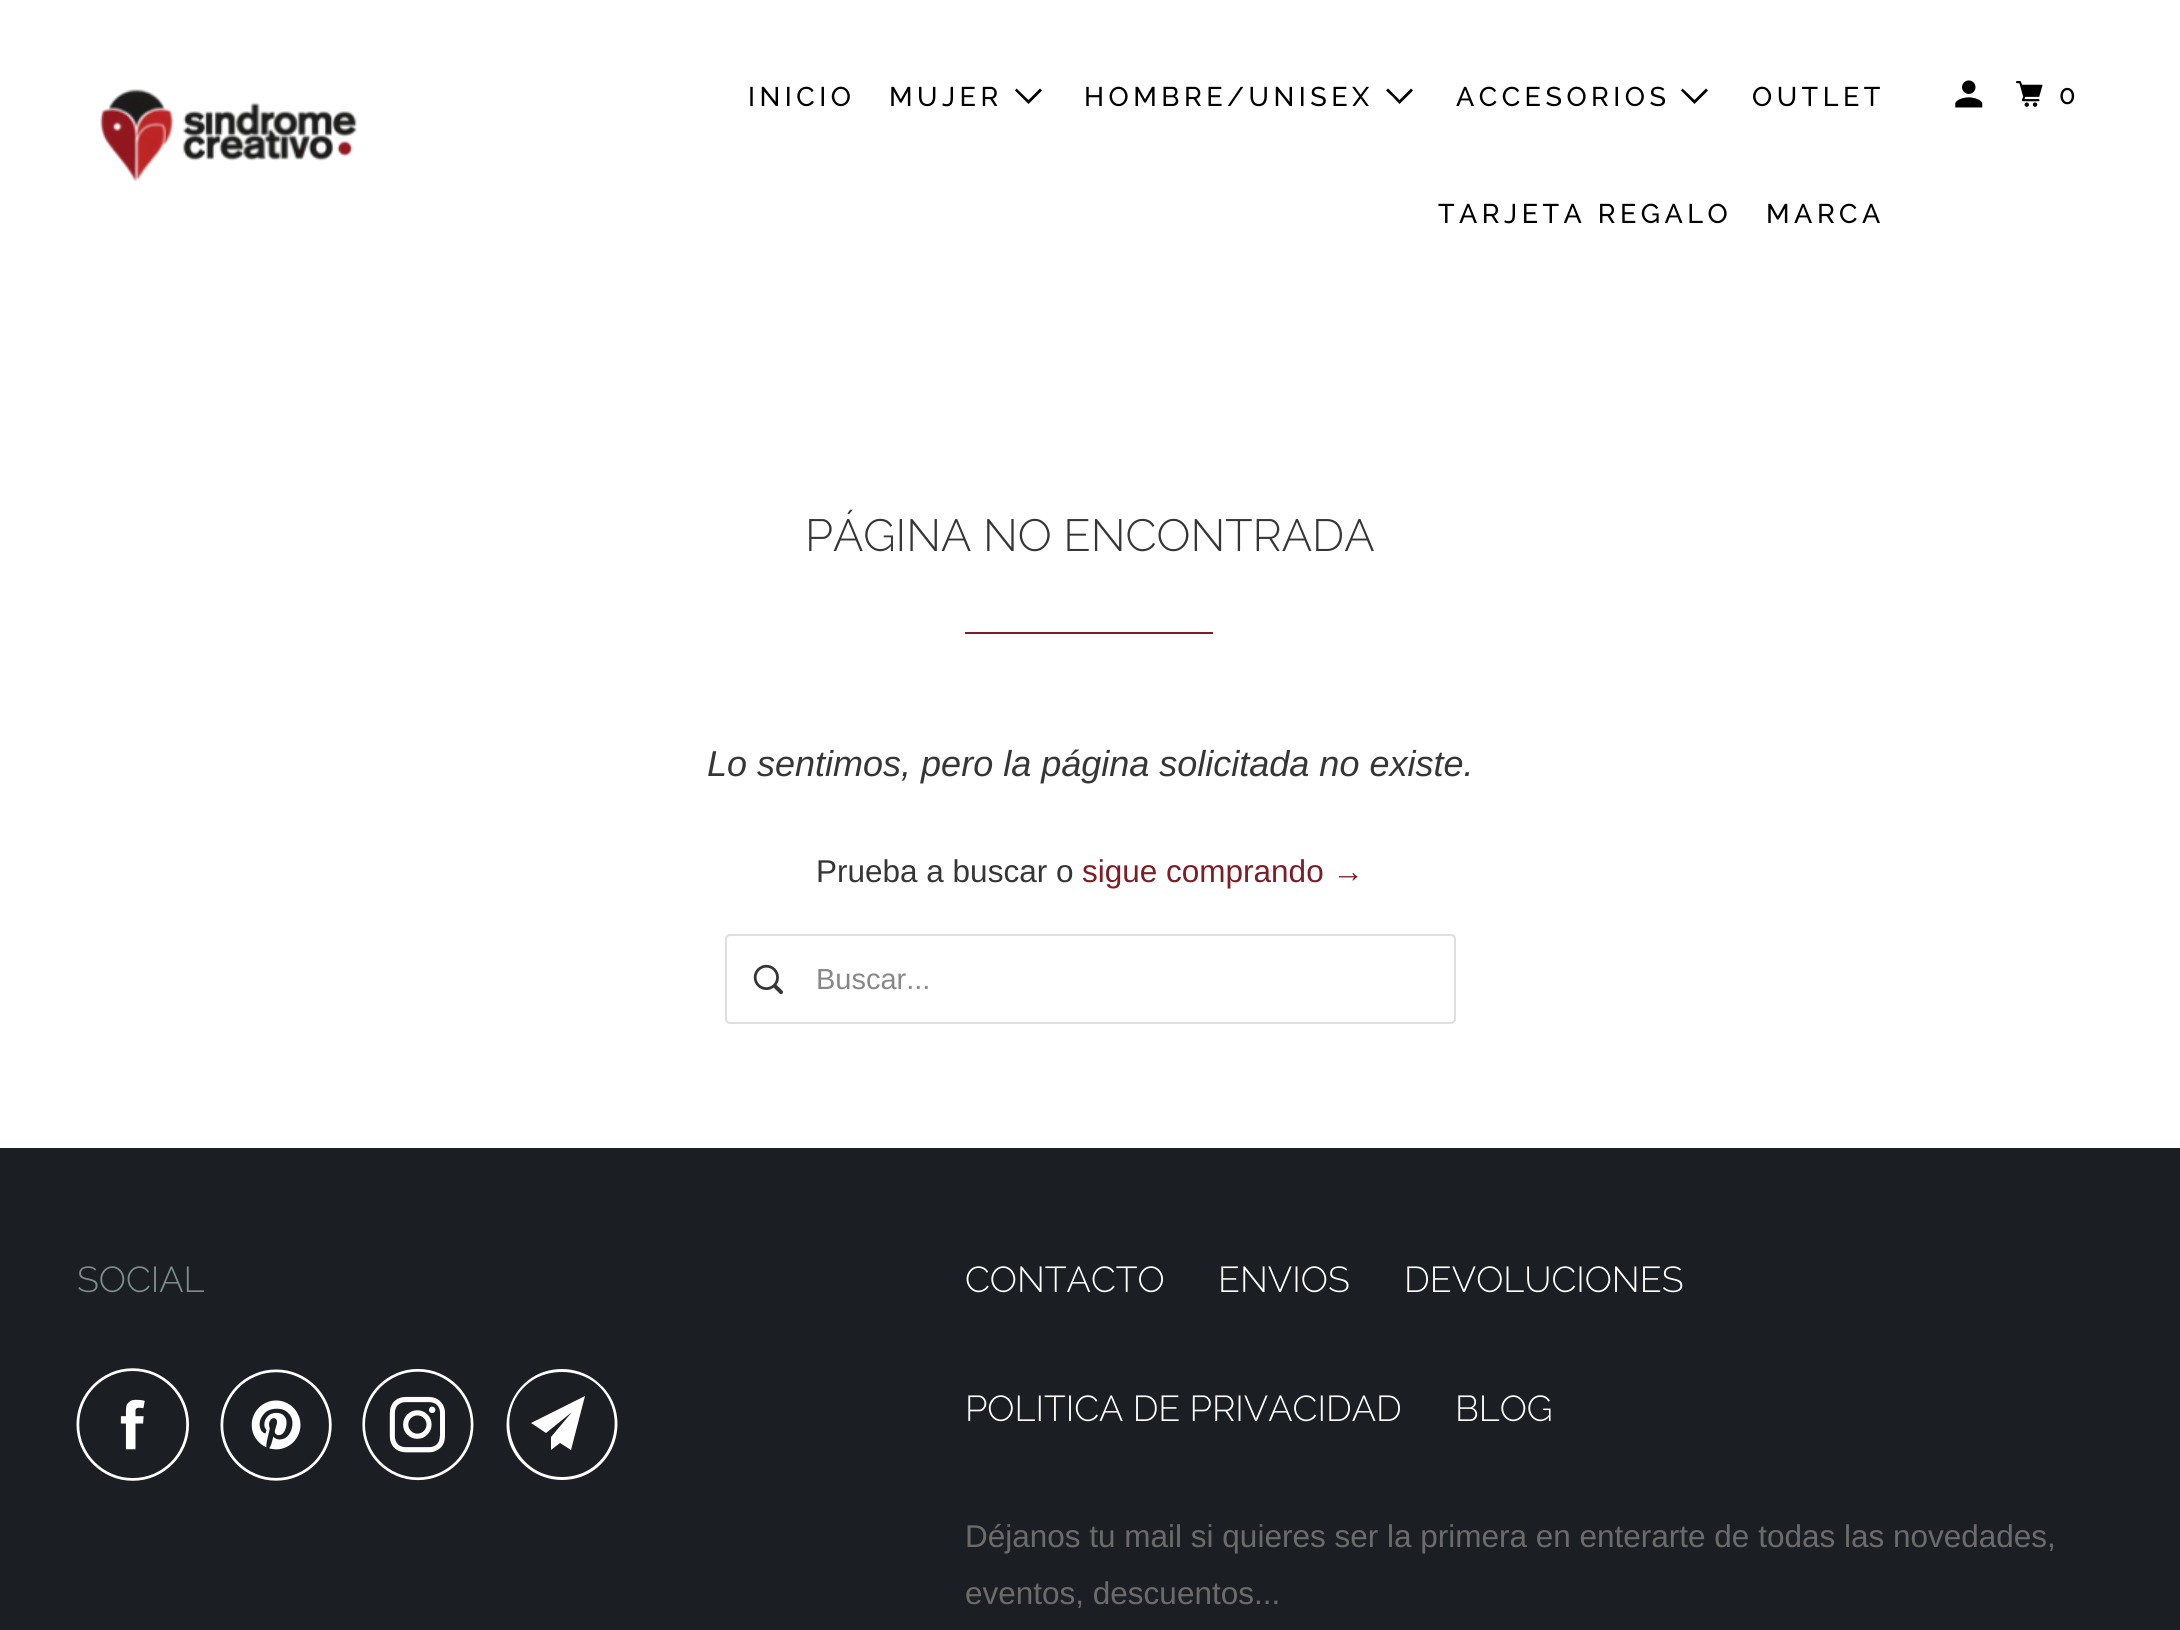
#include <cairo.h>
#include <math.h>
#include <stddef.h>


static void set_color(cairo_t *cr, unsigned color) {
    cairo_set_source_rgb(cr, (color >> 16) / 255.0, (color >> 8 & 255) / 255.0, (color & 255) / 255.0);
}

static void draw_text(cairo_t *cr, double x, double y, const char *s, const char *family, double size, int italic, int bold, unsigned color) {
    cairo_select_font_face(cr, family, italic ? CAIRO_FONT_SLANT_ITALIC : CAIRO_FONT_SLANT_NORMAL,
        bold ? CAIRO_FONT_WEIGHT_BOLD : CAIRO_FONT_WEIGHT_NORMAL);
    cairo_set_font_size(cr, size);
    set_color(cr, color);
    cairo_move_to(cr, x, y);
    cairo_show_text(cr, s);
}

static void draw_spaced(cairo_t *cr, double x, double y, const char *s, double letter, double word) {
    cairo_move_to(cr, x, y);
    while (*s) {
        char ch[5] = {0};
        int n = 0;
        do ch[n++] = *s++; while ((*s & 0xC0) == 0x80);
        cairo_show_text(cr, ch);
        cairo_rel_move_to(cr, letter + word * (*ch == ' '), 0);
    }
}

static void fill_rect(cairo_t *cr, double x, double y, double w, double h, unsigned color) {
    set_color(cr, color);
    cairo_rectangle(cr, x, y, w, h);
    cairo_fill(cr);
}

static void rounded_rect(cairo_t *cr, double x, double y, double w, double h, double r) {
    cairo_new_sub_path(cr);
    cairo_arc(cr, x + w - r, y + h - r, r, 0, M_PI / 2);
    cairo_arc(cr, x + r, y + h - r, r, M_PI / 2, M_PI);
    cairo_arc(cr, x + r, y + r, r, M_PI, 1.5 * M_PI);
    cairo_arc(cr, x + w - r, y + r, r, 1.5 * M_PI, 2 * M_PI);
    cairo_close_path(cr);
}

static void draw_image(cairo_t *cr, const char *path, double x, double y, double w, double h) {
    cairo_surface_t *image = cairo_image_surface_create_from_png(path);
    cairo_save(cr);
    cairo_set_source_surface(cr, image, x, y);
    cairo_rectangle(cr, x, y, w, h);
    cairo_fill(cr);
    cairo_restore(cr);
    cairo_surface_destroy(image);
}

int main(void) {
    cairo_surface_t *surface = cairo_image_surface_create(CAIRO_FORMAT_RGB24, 2180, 1630);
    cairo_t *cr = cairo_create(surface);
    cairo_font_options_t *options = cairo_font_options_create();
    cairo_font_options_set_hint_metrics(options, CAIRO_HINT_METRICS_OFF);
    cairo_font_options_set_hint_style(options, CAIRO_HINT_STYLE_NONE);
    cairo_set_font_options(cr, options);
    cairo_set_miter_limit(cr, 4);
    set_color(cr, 0xFFFFFF);
    cairo_paint(cr);
    draw_image(cr, "assets/img1.png", 100, 89, 257, 93);
    cairo_select_font_face(cr, "Raleway Medium", CAIRO_FONT_SLANT_NORMAL, CAIRO_FONT_WEIGHT_NORMAL);
    cairo_set_font_size(cr, 27);
    set_color(cr, 0x000000);
    draw_spaced(cr, 748, 106, "INICIO", 4.5, 0);
    draw_spaced(cr, 889, 106, "MUJER", 4.5, 0);
    cairo_new_path(cr);
    cairo_move_to(cr, 1021.5, 97);
    cairo_line_to(cr, 1015, 90.5);
    cairo_line_to(cr, 1016.5, 88.5);
    cairo_line_to(cr, 1028.5, 100);
    cairo_line_to(cr, 1040, 88.5);
    cairo_line_to(cr, 1042, 90.5);
    cairo_line_to(cr, 1028.5, 104);
    cairo_close_path(cr);
    cairo_fill(cr);
    draw_spaced(cr, 1084, 106, "HOMBRE/UNISEX", 4.5, 0);
    cairo_new_path(cr);
    cairo_move_to(cr, 1393, 97);
    cairo_line_to(cr, 1386, 90.5);
    cairo_line_to(cr, 1388, 88.5);
    cairo_line_to(cr, 1399.5, 100);
    cairo_line_to(cr, 1411, 88.5);
    cairo_line_to(cr, 1413, 90.5);
    cairo_line_to(cr, 1399.5, 104);
    cairo_close_path(cr);
    cairo_fill(cr);
    draw_spaced(cr, 1456, 106, "ACCESORIOS", 4.5, 0);
    cairo_new_path(cr);
    cairo_move_to(cr, 1687.5, 97);
    cairo_line_to(cr, 1681, 90.5);
    cairo_line_to(cr, 1682.5, 88.5);
    cairo_line_to(cr, 1694.5, 100);
    cairo_line_to(cr, 1706, 88.5);
    cairo_line_to(cr, 1708, 90.5);
    cairo_line_to(cr, 1694.5, 104);
    cairo_close_path(cr);
    cairo_fill(cr);
    draw_spaced(cr, 1752, 106, "OUTLET", 4.5, 0);
    draw_spaced(cr, 1438, 223, "TARJETA REGALO", 4.5, 0);
    draw_spaced(cr, 1766, 223, "MARCA", 4.5, 0);
    draw_image(cr, "assets/img2.png", 1955, 80, 28, 28);
    draw_image(cr, "assets/img3.png", 2016, 81, 27, 26);
    draw_spaced(cr, 2059, 104, "0", 4.5, 0);
    draw_text(cr, 805, 551, "PÁGINA NO ENCONTRADA", "Raleway Light", 45, 0, 0, 0x363636);
    fill_rect(cr, 965, 632, 248, 2, 0x7D1D25);
    draw_text(cr, 707, 776, "Lo sentimos, pero la página solicitada no existe.", "Liberation Sans", 36, 1, 0, 0x363636);
    draw_text(cr, 816, 882, "Prueba a buscar o", "Liberation Sans", 31.5, 0, 0, 0x363636);
    draw_text(cr, 1082, 882, "sigue comprando →", "Liberation Sans", 31.5, 0, 0, 0x7D1D25);
    rounded_rect(cr, 726, 935, 729, 88, 4);
    set_color(cr, 0xDFDFDF);
    cairo_stroke(cr);
    draw_image(cr, "assets/img4.png", 753, 964, 30, 30);
    draw_text(cr, 816, 989, "Buscar...", "Liberation Sans", 29, 0, 0, 0x888888);
    fill_rect(cr, 0, 1148, 2180, 482, 0x1B1F23);
    draw_text(cr, 77, 1292, "SOCIAL", "Raleway Light", 36, 0, 0, 0x7F8C8D);
    draw_image(cr, "assets/img5.png", 76, 1368, 113, 113);
    draw_image(cr, "assets/img6.png", 220, 1369, 112, 112);
    draw_image(cr, "assets/img7.png", 362, 1368, 112, 113);
    set_color(cr, 0xFFFFFF);
    cairo_new_path(cr);
    cairo_move_to(cr, 571, 1450);
    cairo_line_to(cr, 560, 1443);
    cairo_line_to(cr, 551, 1450);
    cairo_line_to(cr, 551, 1437);
    cairo_line_to(cr, 572, 1412);
    cairo_line_to(cr, 546, 1433);
    cairo_line_to(cr, 531, 1423);
    cairo_line_to(cr, 585, 1396);
    cairo_close_path(cr);
    cairo_move_to(cr, 562, 1372);
    cairo_curve_to(cr, 551, 1372, 539, 1375, 530, 1382);
    cairo_curve_to(cr, 490, 1412, 512, 1477, 562, 1477);
    cairo_curve_to(cr, 612, 1477, 634, 1413, 594, 1382);
    cairo_curve_to(cr, 584, 1375, 573, 1372, 562, 1372);
    cairo_close_path(cr);
    cairo_move_to(cr, 562, 1480);
    cairo_curve_to(cr, 550, 1480, 538, 1476, 529, 1469);
    cairo_curve_to(cr, 486, 1437, 509, 1369, 562, 1369);
    cairo_curve_to(cr, 574, 1369, 586, 1373, 595, 1380);
    cairo_curve_to(cr, 638, 1412, 615, 1480, 562, 1480);
    cairo_close_path(cr);
    cairo_fill(cr);
    draw_text(cr, 965, 1292, "CONTACTO", "Raleway Light", 36, 0, 0, 0xFFFFFF);
    draw_text(cr, 1218, 1292, "ENVIOS", "Raleway Light", 36, 0, 0, 0xFFFFFF);
    draw_text(cr, 1404, 1292, "DEVOLUCIONES", "Raleway Light", 36, 0, 0, 0xFFFFFF);
    draw_text(cr, 965, 1421, "POLITICA DE PRIVACIDAD", "Raleway Light", 36, 0, 0, 0xFFFFFF);
    draw_text(cr, 1455, 1421, "BLOG", "Raleway Light", 36, 0, 0, 0xFFFFFF);
    draw_text(cr, 965, 1547, "Déjanos tu mail si quieres ser la primera en enterarte de todas las novedades,", "Liberation Sans", 31.5, 0, 0, 0x6B6B6B);
    draw_text(cr, 965, 1604, "eventos, descuentos...", "Liberation Sans", 31.5, 0, 0, 0x6B6B6B);
    cairo_surface_write_to_png(surface, "output.png");
    cairo_font_options_destroy(options);
    cairo_destroy(cr);
    cairo_surface_destroy(surface);
    return 0;
}
